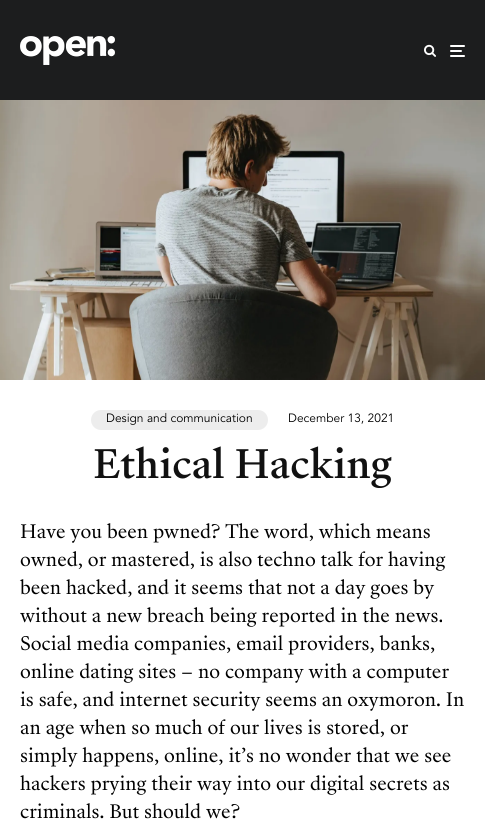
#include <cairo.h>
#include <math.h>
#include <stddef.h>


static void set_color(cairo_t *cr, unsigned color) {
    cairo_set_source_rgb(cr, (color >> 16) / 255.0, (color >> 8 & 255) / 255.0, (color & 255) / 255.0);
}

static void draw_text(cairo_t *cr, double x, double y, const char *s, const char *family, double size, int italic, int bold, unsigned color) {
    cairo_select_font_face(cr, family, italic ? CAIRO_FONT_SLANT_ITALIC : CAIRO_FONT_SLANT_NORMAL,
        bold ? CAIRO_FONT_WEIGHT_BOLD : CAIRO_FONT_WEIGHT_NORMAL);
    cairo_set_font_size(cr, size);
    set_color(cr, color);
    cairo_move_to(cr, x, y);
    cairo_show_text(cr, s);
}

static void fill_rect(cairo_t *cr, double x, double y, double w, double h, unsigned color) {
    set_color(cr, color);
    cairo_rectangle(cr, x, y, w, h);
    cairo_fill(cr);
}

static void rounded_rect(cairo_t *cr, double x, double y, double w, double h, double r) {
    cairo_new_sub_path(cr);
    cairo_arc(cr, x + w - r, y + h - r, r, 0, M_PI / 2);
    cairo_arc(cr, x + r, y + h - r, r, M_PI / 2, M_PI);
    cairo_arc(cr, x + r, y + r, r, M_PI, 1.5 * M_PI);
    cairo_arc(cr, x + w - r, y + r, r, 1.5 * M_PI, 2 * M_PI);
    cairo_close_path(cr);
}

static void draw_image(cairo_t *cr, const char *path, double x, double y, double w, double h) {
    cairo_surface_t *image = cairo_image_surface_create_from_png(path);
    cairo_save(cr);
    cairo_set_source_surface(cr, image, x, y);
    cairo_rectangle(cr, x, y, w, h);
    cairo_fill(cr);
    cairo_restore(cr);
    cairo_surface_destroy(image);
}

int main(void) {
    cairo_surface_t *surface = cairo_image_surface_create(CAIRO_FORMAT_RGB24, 485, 840);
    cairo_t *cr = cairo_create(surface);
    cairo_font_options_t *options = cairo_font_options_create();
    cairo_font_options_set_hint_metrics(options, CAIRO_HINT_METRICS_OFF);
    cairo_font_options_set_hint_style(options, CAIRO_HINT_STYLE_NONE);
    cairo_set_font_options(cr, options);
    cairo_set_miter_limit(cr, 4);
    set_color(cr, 0xFFFFFF);
    cairo_paint(cr);
    fill_rect(cr, 0, 0, 485, 100, 0x1C1D1E);
    draw_image(cr, "assets/img1.png", 20, 36, 95, 29);
    draw_image(cr, "assets/img2.png", 424, 44, 12, 13);
    set_color(cr, 0xFFFFFF);
    rounded_rect(cr, 450, 50, 12, 2, 1);
    cairo_fill(cr);
    rounded_rect(cr, 450, 45, 15, 2, 1);
    cairo_fill(cr);
    rounded_rect(cr, 450, 55, 15, 2, 1);
    cairo_fill(cr);
    draw_image(cr, "assets/img3.png", 0, 100, 485, 280);
    set_color(cr, 0xEDEDED);
    rounded_rect(cr, 91, 410, 177, 20, 10);
    cairo_fill(cr);
    draw_text(cr, 106, 422, "Design and communication", "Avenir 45 Light", 12, 0, 0, 0x000000);
    draw_text(cr, 288, 422, "December 13, 2021", "Avenir 45 Light", 12, 0, 0, 0x000000);
    draw_text(cr, 93, 478, "Ethical Hacking", "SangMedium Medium", 38, 0, 0, 0x111111);
    fill_rect(cr, 379, 488, 2, 1, 0xFFFFFF);
    draw_text(cr, 20, 538, "Have you been pwned? The word, which means", "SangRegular", 18, 0, 0, 0x000000);
    draw_text(cr, 20, 566, "owned, or mastered, is also techno talk for having", "SangRegular", 18, 0, 0, 0x000000);
    draw_text(cr, 20, 594, "been hacked, and it seems that not a day goes by", "SangRegular", 18, 0, 0, 0x000000);
    draw_text(cr, 20, 622, "without a new breach being reported in the news.", "SangRegular", 18, 0, 0, 0x000000);
    draw_text(cr, 20, 650, "Social media companies, email providers, banks,", "SangRegular", 18, 0, 0, 0x000000);
    draw_text(cr, 20, 678, "online dating sites – no company with a computer", "SangRegular", 18, 0, 0, 0x000000);
    draw_text(cr, 20, 706, "is safe, and internet security seems an oxymoron. In", "SangRegular", 18, 0, 0, 0x000000);
    draw_text(cr, 20, 734, "an age when so much of our lives is stored, or", "SangRegular", 18, 0, 0, 0x000000);
    draw_text(cr, 20, 762, "simply happens, online, it’s no wonder that we see", "SangRegular", 18, 0, 0, 0x000000);
    draw_text(cr, 20, 790, "hackers prying their way into our digital secrets as", "SangRegular", 18, 0, 0, 0x000000);
    draw_text(cr, 20, 818, "criminals. But should we?", "SangRegular", 18, 0, 0, 0x000000);
    cairo_surface_write_to_png(surface, "output.png");
    cairo_font_options_destroy(options);
    cairo_destroy(cr);
    cairo_surface_destroy(surface);
    return 0;
}
